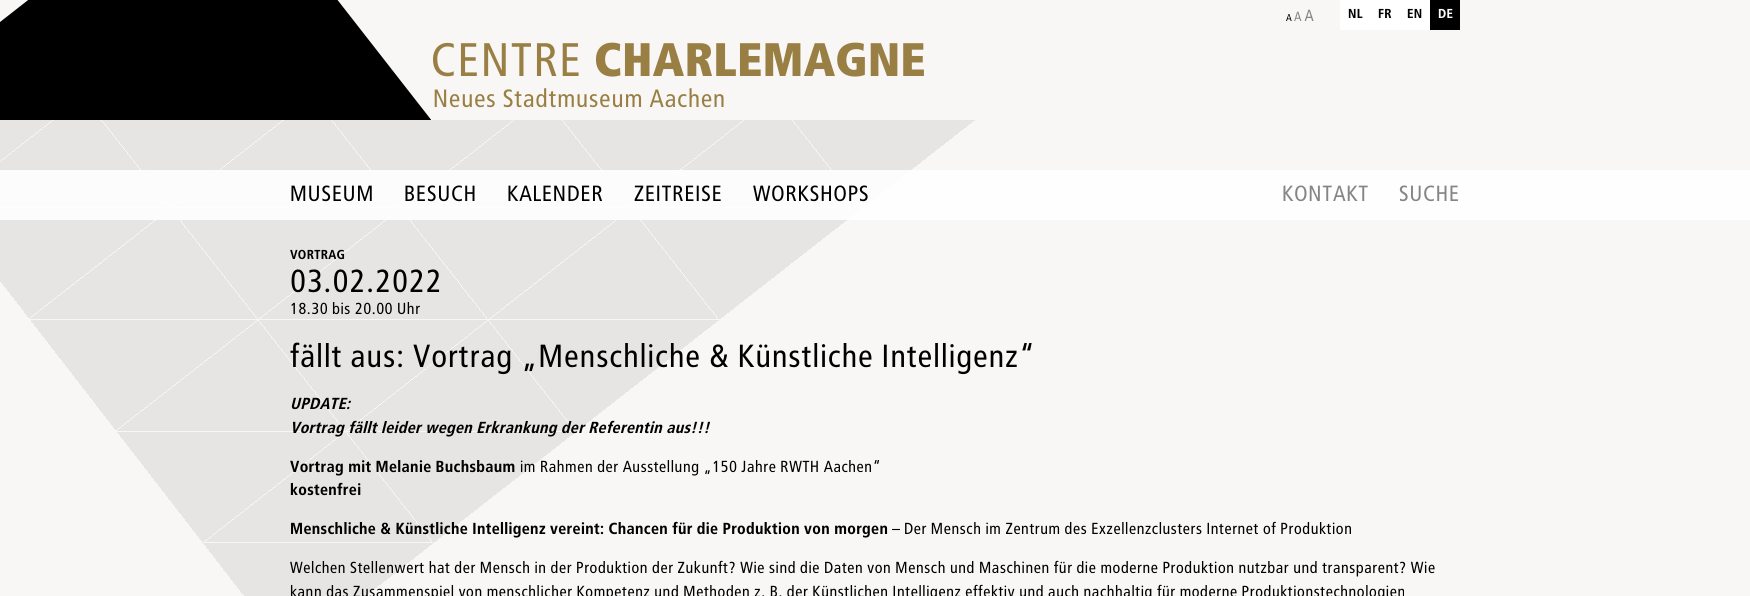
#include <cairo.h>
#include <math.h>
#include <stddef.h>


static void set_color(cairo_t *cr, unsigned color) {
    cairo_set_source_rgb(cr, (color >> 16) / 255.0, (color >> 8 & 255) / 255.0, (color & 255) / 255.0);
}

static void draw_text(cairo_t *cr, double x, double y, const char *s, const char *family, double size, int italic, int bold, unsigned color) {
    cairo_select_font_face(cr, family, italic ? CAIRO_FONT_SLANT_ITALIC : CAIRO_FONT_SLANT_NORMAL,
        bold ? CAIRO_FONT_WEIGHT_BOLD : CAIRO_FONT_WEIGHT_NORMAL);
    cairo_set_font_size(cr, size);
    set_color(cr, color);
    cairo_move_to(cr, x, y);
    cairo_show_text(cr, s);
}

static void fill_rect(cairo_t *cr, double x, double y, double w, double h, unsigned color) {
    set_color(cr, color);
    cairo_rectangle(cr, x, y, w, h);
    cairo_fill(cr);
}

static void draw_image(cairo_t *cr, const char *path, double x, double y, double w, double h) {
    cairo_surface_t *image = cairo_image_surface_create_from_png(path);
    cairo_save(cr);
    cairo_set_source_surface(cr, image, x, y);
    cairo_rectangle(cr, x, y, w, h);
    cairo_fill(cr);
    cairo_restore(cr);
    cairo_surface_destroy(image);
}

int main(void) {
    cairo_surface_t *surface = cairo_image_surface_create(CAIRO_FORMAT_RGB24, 1750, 596);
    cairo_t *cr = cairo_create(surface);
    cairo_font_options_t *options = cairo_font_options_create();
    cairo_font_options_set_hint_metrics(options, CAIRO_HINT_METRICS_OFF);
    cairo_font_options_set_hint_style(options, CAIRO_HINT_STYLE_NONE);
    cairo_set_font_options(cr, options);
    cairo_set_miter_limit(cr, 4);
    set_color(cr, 0xF8F7F5);
    cairo_paint(cr);
    draw_image(cr, "assets/img1.png", 0, 120, 975, 476);
    draw_image(cr, "assets/img2.png", 1286, 9, 28, 12);
    fill_rect(cr, 1340, 0, 90, 30, 0xFFFFFF);
    draw_text(cr, 1348, 18, "NL", "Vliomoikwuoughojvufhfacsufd", 13, 0, 1, 0x000000);
    draw_text(cr, 1378, 18, "FR", "Vliomoikwuoughojvufhfacsufd", 13, 0, 1, 0x000000);
    draw_text(cr, 1407, 18, "EN", "Vliomoikwuoughojvufhfacsufd", 13, 0, 1, 0x000000);
    fill_rect(cr, 1430, 0, 30, 30, 0x000000);
    draw_text(cr, 1438, 18, "DE", "Vliomoikwuoughojvufhfacsufd", 13, 0, 1, 0xFFFFFF);
    draw_image(cr, "assets/img3.png", 0, 0, 431, 120);
    draw_text(cr, 431, 76, "CENTRE", "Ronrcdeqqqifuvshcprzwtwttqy", 47, 0, 0, 0x997F43);
    draw_text(cr, 594, 76, "CHARLEMAGNE", "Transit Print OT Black", 47, 0, 0, 0x997F43);
    draw_text(cr, 433, 107, "Neues Stadtmuseum Aachen", "Ronrcdeqqqifuvshcprzwtwttqy", 25, 0, 0, 0x997F43);
    cairo_set_source_rgba(cr, 1, 1, 1, 0.9);
    cairo_rectangle(cr, 0, 170, 1750, 50);
    cairo_fill(cr);
    draw_text(cr, 290, 201, "MUSEUM", "Ronrcdeqqqifuvshcprzwtwttqy", 22, 0, 0, 0x000000);
    draw_text(cr, 404, 201, "BESUCH", "Ronrcdeqqqifuvshcprzwtwttqy", 22, 0, 0, 0x000000);
    draw_text(cr, 507, 201, "KALENDER", "Ronrcdeqqqifuvshcprzwtwttqy", 22, 0, 0, 0x000000);
    draw_text(cr, 634, 201, "ZEITREISE", "Ronrcdeqqqifuvshcprzwtwttqy", 22, 0, 0, 0x000000);
    draw_text(cr, 753, 201, "WORKSHOPS", "Ronrcdeqqqifuvshcprzwtwttqy", 22, 0, 0, 0x000000);
    draw_text(cr, 1282, 201, "KONTAKT", "Ronrcdeqqqifuvshcprzwtwttqy", 22, 0, 0, 0x858584);
    draw_text(cr, 1399, 201, "SUCHE", "Ronrcdeqqqifuvshcprzwtwttqy", 22, 0, 0, 0x858584);
    draw_text(cr, 290, 259, "VORTRAG", "Vliomoikwuoughojvufhfacsufd", 13, 0, 1, 0x000000);
    draw_text(cr, 290, 292, "03.02.2022", "Ronrcdeqqqifuvshcprzwtwttqy", 32, 0, 0, 0x000000);
    draw_text(cr, 290, 314, "18.30 bis 20.00 Uhr", "Ronrcdeqqqifuvshcprzwtwttqy", 16, 0, 0, 0x000000);
    draw_text(cr, 290, 367, "fällt aus: Vortrag „Menschliche & Künstliche Intelligenz“", "Ronrcdeqqqifuvshcprzwtwttqy", 32, 0, 0, 0x000000);
    draw_text(cr, 290, 409, "UPDATE:", "Vliomoikwuoughojvufhfacsufd", 16, 1, 1, 0x000000);
    draw_text(cr, 290, 433, "Vortrag fällt leider wegen Erkrankung der Referentin aus!!!", "Vliomoikwuoughojvufhfacsufd", 16, 1, 1, 0x000000);
    draw_text(cr, 290, 472, "Vortrag mit Melanie Buchsbaum", "Vliomoikwuoughojvufhfacsufd", 16, 0, 1, 0x000000);
    draw_text(cr, 520, 472, "im Rahmen der Ausstellung „150 Jahre RWTH Aachen“", "Ronrcdeqqqifuvshcprzwtwttqy", 16, 0, 0, 0x000000);
    draw_text(cr, 290, 495, "kostenfrei", "Vliomoikwuoughojvufhfacsufd", 16, 0, 1, 0x000000);
    draw_text(cr, 290, 534, "Menschliche & Künstliche Intelligenz vereint: Chancen für die Produktion von morgen", "Vliomoikwuoughojvufhfacsufd", 16, 0, 1, 0x000000);
    draw_text(cr, 892, 534, "– Der Mensch im Zentrum des Exzellenzclusters Internet of Produktion", "Ronrcdeqqqifuvshcprzwtwttqy", 16, 0, 0, 0x000000);
    draw_text(cr, 290, 573, "Welchen Stellenwert hat der Mensch in der Produktion der Zukunft? Wie sind die Daten von Mensch und Maschinen für die moderne Produktion nutzbar und transparent? Wie", "Ronrcdeqqqifuvshcprzwtwttqy", 16, 0, 0, 0x000000);
    draw_text(cr, 290, 597, "kann das Zusammenspiel von menschlicher Kompetenz und Methoden z. B. der Künstlichen Intelligenz effektiv und auch nachhaltig für moderne Produktionstechnologien", "Ronrcdeqqqifuvshcprzwtwttqy", 16, 0, 0, 0x000000);
    cairo_surface_write_to_png(surface, "output.png");
    cairo_font_options_destroy(options);
    cairo_destroy(cr);
    cairo_surface_destroy(surface);
    return 0;
}
